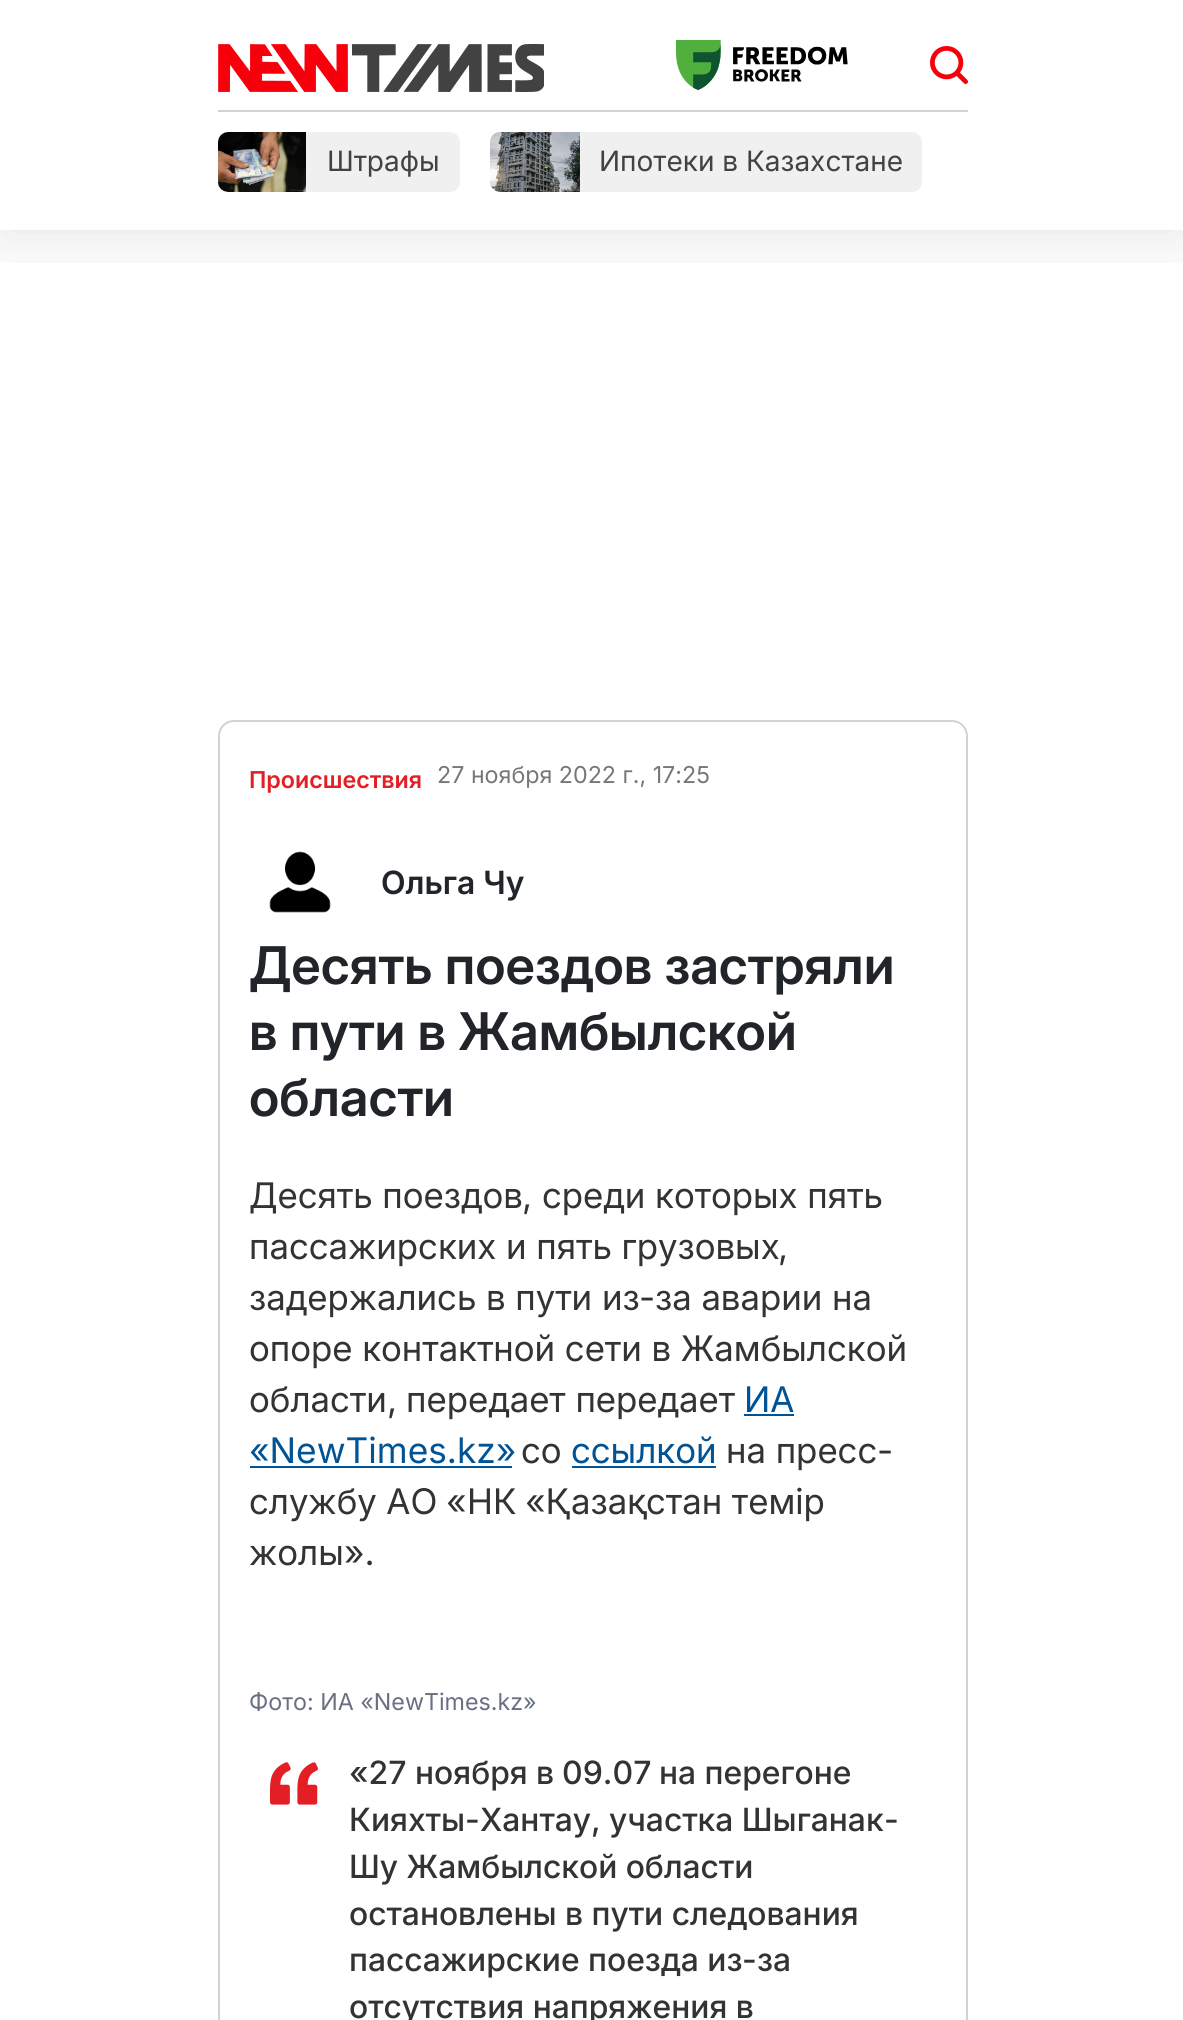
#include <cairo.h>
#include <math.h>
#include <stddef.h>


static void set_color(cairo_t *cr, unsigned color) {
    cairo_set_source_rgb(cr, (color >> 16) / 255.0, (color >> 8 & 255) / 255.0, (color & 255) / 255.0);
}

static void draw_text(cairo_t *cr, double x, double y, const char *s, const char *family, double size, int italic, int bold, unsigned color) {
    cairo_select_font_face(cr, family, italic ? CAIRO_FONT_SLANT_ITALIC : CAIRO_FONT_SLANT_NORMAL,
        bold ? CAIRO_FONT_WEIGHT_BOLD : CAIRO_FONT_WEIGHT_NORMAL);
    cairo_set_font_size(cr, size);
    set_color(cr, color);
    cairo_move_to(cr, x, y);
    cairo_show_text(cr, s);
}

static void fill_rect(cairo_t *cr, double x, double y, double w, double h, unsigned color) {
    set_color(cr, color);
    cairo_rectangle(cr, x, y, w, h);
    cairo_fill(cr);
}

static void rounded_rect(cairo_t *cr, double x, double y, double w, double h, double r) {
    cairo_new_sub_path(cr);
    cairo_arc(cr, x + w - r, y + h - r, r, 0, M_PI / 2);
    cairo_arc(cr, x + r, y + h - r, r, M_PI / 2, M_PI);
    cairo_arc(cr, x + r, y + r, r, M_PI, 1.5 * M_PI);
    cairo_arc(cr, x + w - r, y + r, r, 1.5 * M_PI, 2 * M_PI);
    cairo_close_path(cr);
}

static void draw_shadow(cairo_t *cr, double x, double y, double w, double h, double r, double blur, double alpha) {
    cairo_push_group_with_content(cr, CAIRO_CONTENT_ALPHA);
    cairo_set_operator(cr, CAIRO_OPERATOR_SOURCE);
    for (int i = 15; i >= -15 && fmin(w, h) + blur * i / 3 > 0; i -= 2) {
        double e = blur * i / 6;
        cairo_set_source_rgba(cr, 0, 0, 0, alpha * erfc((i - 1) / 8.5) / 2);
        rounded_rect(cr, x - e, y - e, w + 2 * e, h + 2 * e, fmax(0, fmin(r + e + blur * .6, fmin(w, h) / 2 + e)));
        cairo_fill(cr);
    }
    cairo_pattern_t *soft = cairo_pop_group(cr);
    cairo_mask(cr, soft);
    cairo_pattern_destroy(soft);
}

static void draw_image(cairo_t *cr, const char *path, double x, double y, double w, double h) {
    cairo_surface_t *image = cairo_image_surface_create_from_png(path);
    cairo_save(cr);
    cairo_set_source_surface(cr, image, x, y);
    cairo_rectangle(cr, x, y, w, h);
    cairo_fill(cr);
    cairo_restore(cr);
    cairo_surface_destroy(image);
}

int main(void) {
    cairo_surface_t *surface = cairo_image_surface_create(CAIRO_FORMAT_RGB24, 1183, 2020);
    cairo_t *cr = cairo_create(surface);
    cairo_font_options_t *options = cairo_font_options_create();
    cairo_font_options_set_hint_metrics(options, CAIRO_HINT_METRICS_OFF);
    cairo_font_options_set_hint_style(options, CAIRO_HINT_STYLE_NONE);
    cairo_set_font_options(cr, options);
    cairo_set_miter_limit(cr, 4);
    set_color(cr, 0xFFFFFF);
    cairo_paint(cr);
    cairo_save(cr);
    cairo_rectangle(cr, 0, 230, 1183, 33);
    cairo_clip(cr);
    set_color(cr, 0x000000);
    draw_shadow(cr, 0, 8, 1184, 230, 0, 30, 0.1);
    cairo_restore(cr);
    fill_rect(cr, 218, 110, 750, 2, 0xD2D2D2);
    draw_image(cr, "assets/img1.png", 218, 44, 326, 48);
    draw_image(cr, "assets/img2.png", 676, 40, 172, 50);
    draw_image(cr, "assets/img3.png", 930, 46, 38, 38);
    set_color(cr, 0xF0F0F0);
    rounded_rect(cr, 218, 132, 242, 60, 10);
    cairo_fill(cr);
    draw_image(cr, "assets/img4.png", 218, 132, 88, 60);
    draw_text(cr, 327, 171, "Штрафы", "Inter", 28, 0, 0, 0x434242);
    set_color(cr, 0xF0F0F0);
    rounded_rect(cr, 490, 132, 432, 60, 10);
    cairo_fill(cr);
    draw_image(cr, "assets/img5.png", 490, 132, 90, 60);
    draw_text(cr, 599, 171, "Ипотеки в Казахстане", "Inter", 28, 0, 0, 0x434242);
    rounded_rect(cr, 219, 721, 748, 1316, 15);
    set_color(cr, 0xD2D2D2);
    cairo_stroke(cr);
    draw_text(cr, 249, 788, "Проиcшествия", "Inter SemiBold", 23.25, 0, 0, 0xE31E24);
    draw_text(cr, 437, 783, "27 ноября 2022 г., 17:25", "Inter", 23.25, 0, 0, 0x777777);
    draw_image(cr, "assets/img6.png", 269, 851, 62, 62);
    draw_text(cr, 381, 894, "Ольга Чу", "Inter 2 SemiBold", 32, 0, 0, 0x212529);
    draw_text(cr, 249, 984, "Десять поездов застряли", "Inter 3 SemiBold", 52, 0, 0, 0x212529);
    draw_text(cr, 249, 1050, "в пути в Жамбылской", "Inter 3 SemiBold", 52, 0, 0, 0x212529);
    draw_text(cr, 249, 1116, "области", "Inter 3 SemiBold", 52, 0, 0, 0x212529);
    draw_text(cr, 249, 1208, "Десять поездов", "Inter 2", 35.25, 0, 0, 0x333333);
    draw_text(cr, 522, 1208, ",", "Inter", 35.25, 0, 0, 0x333333);
    draw_text(cr, 542, 1208, "среди которых пять", "Inter 2", 35.25, 0, 0, 0x333333);
    draw_text(cr, 249, 1259, "пассажирских и пять грузовых", "Inter 2", 35.25, 0, 0, 0x333333);
    draw_text(cr, 778, 1259, ",", "Inter", 35.25, 0, 0, 0x333333);
    draw_text(cr, 249, 1310, "задержались в пути из", "Inter 2", 35.25, 0, 0, 0x333333);
    draw_text(cr, 639, 1310, "-", "Inter", 35.25, 0, 0, 0x333333);
    draw_text(cr, 655, 1310, "за аварии на", "Inter 2", 35.25, 0, 0, 0x333333);
    draw_text(cr, 249, 1361, "опоре контактной сети в Жамбылской", "Inter 2", 35.25, 0, 0, 0x333333);
    draw_text(cr, 249, 1412, "области", "Inter 2", 35.25, 0, 0, 0x333333);
    draw_text(cr, 387, 1412, ",", "Inter", 35.25, 0, 0, 0x333333);
    draw_text(cr, 406, 1412, "передает передает", "Inter 2", 35.25, 0, 0, 0x333333);
    draw_text(cr, 744, 1412, "ИА", "Inter 2", 35.25, 0, 0, 0x005394);
    fill_rect(cr, 744, 1414, 50, 2, 0x005394);
    draw_text(cr, 249, 1463, "«NewTimes.kz»", "Inter", 35.25, 0, 0, 0x005394);
    fill_rect(cr, 250, 1466, 262, 2, 0x005394);
    draw_text(cr, 521, 1463, "со", "Inter 2", 35.25, 0, 0, 0x333333);
    draw_text(cr, 571, 1463, "ссылкой", "Inter 2", 35.25, 0, 0, 0x005394);
    fill_rect(cr, 572, 1466, 144, 2, 0x005394);
    draw_text(cr, 726, 1463, "на пресс", "Inter 2", 35.25, 0, 0, 0x333333);
    draw_text(cr, 877, 1463, "-", "Inter", 35.25, 0, 0, 0x333333);
    draw_text(cr, 249, 1514, "службу АО", "Inter 2", 35.25, 0, 0, 0x333333);
    draw_text(cr, 446, 1514, "«", "Inter", 35.25, 0, 0, 0x333333);
    draw_text(cr, 467, 1514, "НК", "Inter 2", 35.25, 0, 0, 0x333333);
    draw_text(cr, 525, 1514, "«Қ", "Inter", 35.25, 0, 0, 0x333333);
    draw_text(cr, 571, 1514, "аза", "Inter 2", 35.25, 0, 0, 0x333333);
    draw_text(cr, 627, 1514, "қ", "Inter", 35.25, 0, 0, 0x333333);
    draw_text(cr, 646, 1514, "стан темір", "Inter 2", 35.25, 0, 0, 0x333333);
    draw_text(cr, 249, 1565, "жолы", "Inter 2", 35.25, 0, 0, 0x333333);
    draw_text(cr, 344, 1565, "».", "Inter", 35.25, 0, 0, 0x333333);
    draw_text(cr, 249, 1710, "Фото: ИА «NewTimes.kz»", "Inter", 23.25, 0, 0, 0x687082);
    draw_image(cr, "assets/img7.png", 270, 1762, 48, 43);
    draw_text(cr, 349, 1784, "«27", "Inter Medium", 32, 0, 0, 0x333333);
    draw_text(cr, 415, 1784, "ноября в", "Inter 2 Medium", 32, 0, 0, 0x333333);
    draw_text(cr, 562, 1784, "09.07", "Inter Medium", 32, 0, 0, 0x333333);
    draw_text(cr, 659, 1784, "на перегоне", "Inter 2 Medium", 32, 0, 0, 0x333333);
    draw_text(cr, 349, 1831, "Кияхты", "Inter 2 Medium", 32, 0, 0, 0x333333);
    draw_text(cr, 465, 1831, "-", "Inter Medium", 32, 0, 0, 0x333333);
    draw_text(cr, 480, 1831, "Хантау", "Inter 2 Medium", 32, 0, 0, 0x333333);
    draw_text(cr, 609, 1831, "участка Шыганак", "Inter 2 Medium", 32, 0, 0, 0x333333);
    draw_text(cr, 884, 1831, "-", "Inter Medium", 32, 0, 0, 0x333333);
    draw_text(cr, 591, 1831, ",", "Inter Medium", 32, 0, 0, 0x333333);
    draw_text(cr, 349, 1878, "Шу Жамбылской области", "Inter 2 Medium", 32, 0, 0, 0x333333);
    draw_text(cr, 349, 1925, "остановлены в пути следования", "Inter 2 Medium", 32, 0, 0, 0x333333);
    draw_text(cr, 349, 1971, "пассажирские поезда из", "Inter 2 Medium", 32, 0, 0, 0x333333);
    draw_text(cr, 742, 1971, "-", "Inter Medium", 32, 0, 0, 0x333333);
    draw_text(cr, 757, 1971, "за", "Inter 2 Medium", 32, 0, 0, 0x333333);
    draw_text(cr, 349, 2018, "отсутствия напряжения в", "Inter 2 Medium", 32, 0, 0, 0x333333);
    cairo_surface_write_to_png(surface, "output.png");
    cairo_font_options_destroy(options);
    cairo_destroy(cr);
    cairo_surface_destroy(surface);
    return 0;
}
